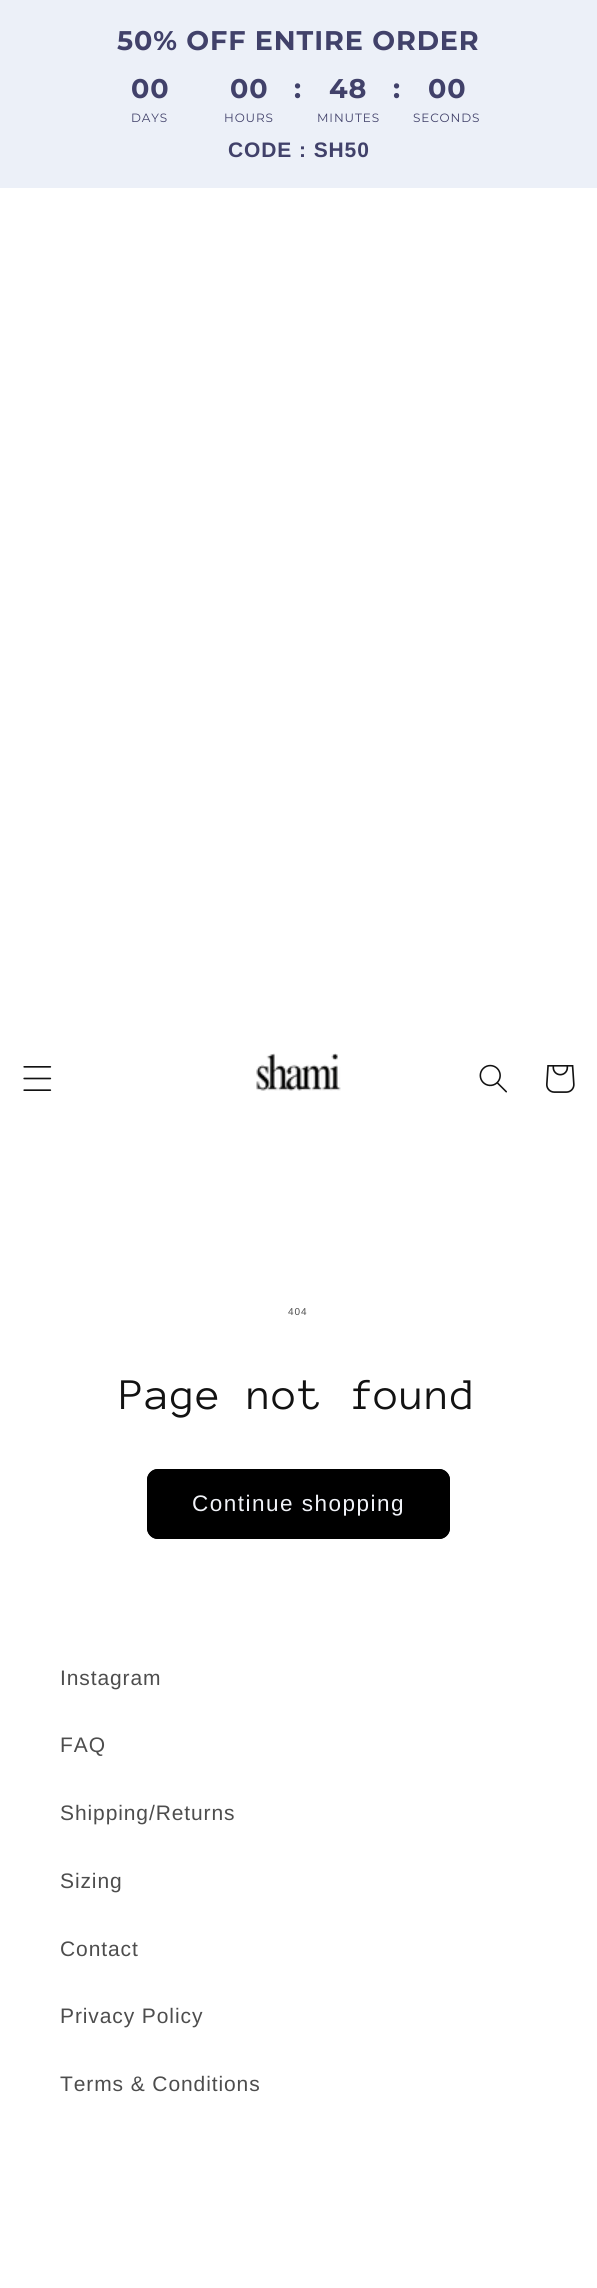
#include <cairo.h>
#include <math.h>
#include <stddef.h>


static void set_color(cairo_t *cr, unsigned color) {
    cairo_set_source_rgb(cr, (color >> 16) / 255.0, (color >> 8 & 255) / 255.0, (color & 255) / 255.0);
}

static void draw_spaced(cairo_t *cr, double x, double y, const char *s, double letter, double word) {
    cairo_move_to(cr, x, y);
    while (*s) {
        char ch[5] = {0};
        int n = 0;
        do ch[n++] = *s++; while ((*s & 0xC0) == 0x80);
        cairo_show_text(cr, ch);
        cairo_rel_move_to(cr, letter + word * (*ch == ' '), 0);
    }
}

static void fill_rect(cairo_t *cr, double x, double y, double w, double h, unsigned color) {
    set_color(cr, color);
    cairo_rectangle(cr, x, y, w, h);
    cairo_fill(cr);
}

static void rounded_rect(cairo_t *cr, double x, double y, double w, double h, double r) {
    cairo_new_sub_path(cr);
    cairo_arc(cr, x + w - r, y + h - r, r, 0, M_PI / 2);
    cairo_arc(cr, x + r, y + h - r, r, M_PI / 2, M_PI);
    cairo_arc(cr, x + r, y + r, r, M_PI, 1.5 * M_PI);
    cairo_arc(cr, x + w - r, y + r, r, 1.5 * M_PI, 2 * M_PI);
    cairo_close_path(cr);
}

static void draw_image(cairo_t *cr, const char *path, double x, double y, double w, double h) {
    cairo_surface_t *image = cairo_image_surface_create_from_png(path);
    cairo_save(cr);
    cairo_set_source_surface(cr, image, x, y);
    cairo_rectangle(cr, x, y, w, h);
    cairo_fill(cr);
    cairo_restore(cr);
    cairo_surface_destroy(image);
}

int main(void) {
    cairo_surface_t *surface = cairo_image_surface_create(CAIRO_FORMAT_RGB24, 597, 2288);
    cairo_t *cr = cairo_create(surface);
    cairo_font_options_t *options = cairo_font_options_create();
    cairo_font_options_set_hint_metrics(options, CAIRO_HINT_METRICS_OFF);
    cairo_font_options_set_hint_style(options, CAIRO_HINT_STYLE_NONE);
    cairo_set_font_options(cr, options);
    cairo_set_miter_limit(cr, 4);
    set_color(cr, 0xFFFFFF);
    cairo_paint(cr);
    fill_rect(cr, 0, 0, 597, 188, 0xECF0F8);
    cairo_select_font_face(cr, "Montserrat", CAIRO_FONT_SLANT_NORMAL, CAIRO_FONT_WEIGHT_BOLD);
    cairo_set_font_size(cr, 27);
    set_color(cr, 0x41416A);
    draw_spaced(cr, 117, 50, "50% OFF ENTIRE ORDER", 0.9, 0);
    draw_spaced(cr, 131, 98, "00", 0.9, 0);
    cairo_select_font_face(cr, "Montserrat", CAIRO_FONT_SLANT_NORMAL, CAIRO_FONT_WEIGHT_NORMAL);
    cairo_set_font_size(cr, 12);
    draw_spaced(cr, 131, 122, "DAYS", 0.9, 0);
    cairo_select_font_face(cr, "Montserrat", CAIRO_FONT_SLANT_NORMAL, CAIRO_FONT_WEIGHT_BOLD);
    cairo_set_font_size(cr, 27);
    draw_spaced(cr, 230, 98, "00", 0.9, 0);
    cairo_select_font_face(cr, "Montserrat", CAIRO_FONT_SLANT_NORMAL, CAIRO_FONT_WEIGHT_NORMAL);
    cairo_set_font_size(cr, 12);
    draw_spaced(cr, 224, 122, "HOURS", 0.9, 0);
    cairo_select_font_face(cr, "Montserrat", CAIRO_FONT_SLANT_NORMAL, CAIRO_FONT_WEIGHT_BOLD);
    cairo_set_font_size(cr, 27);
    draw_spaced(cr, 294, 98, ":", 0.9, 0);
    draw_spaced(cr, 329, 98, "48", 0.9, 0);
    cairo_select_font_face(cr, "Montserrat", CAIRO_FONT_SLANT_NORMAL, CAIRO_FONT_WEIGHT_NORMAL);
    cairo_set_font_size(cr, 12);
    draw_spaced(cr, 317, 122, "MINUTES", 0.9, 0);
    cairo_select_font_face(cr, "Montserrat", CAIRO_FONT_SLANT_NORMAL, CAIRO_FONT_WEIGHT_BOLD);
    cairo_set_font_size(cr, 27);
    draw_spaced(cr, 393, 98, ":", 0.9, 0);
    draw_spaced(cr, 428, 98, "00", 0.9, 0);
    cairo_select_font_face(cr, "Montserrat", CAIRO_FONT_SLANT_NORMAL, CAIRO_FONT_WEIGHT_NORMAL);
    cairo_set_font_size(cr, 12);
    draw_spaced(cr, 413, 122, "SECONDS", 0.9, 0);
    cairo_select_font_face(cr, "Liberation Sans", CAIRO_FONT_SLANT_NORMAL, CAIRO_FONT_WEIGHT_BOLD);
    cairo_set_font_size(cr, 21);
    draw_spaced(cr, 228, 157, "CODE : SH50", 0.9, 0);
    draw_image(cr, "assets/img1.png", 23, 1066, 29, 25);
    draw_image(cr, "assets/img2.png", 256, 1053, 85, 38);
    draw_image(cr, "assets/img3.png", 479, 1064, 28, 29);
    draw_image(cr, "assets/img4.png", 546, 1065, 29, 28);
    cairo_select_font_face(cr, "Liberation Sans", CAIRO_FONT_SLANT_NORMAL, CAIRO_FONT_WEIGHT_NORMAL);
    cairo_set_font_size(cr, 10);
    set_color(cr, 0x4D4D4D);
    draw_spaced(cr, 288, 1315, "404", 0.9, 0);
    cairo_select_font_face(cr, "Anonymous Pro", CAIRO_FONT_SLANT_NORMAL, CAIRO_FONT_WEIGHT_NORMAL);
    cairo_set_font_size(cr, 45);
    set_color(cr, 0x121212);
    draw_spaced(cr, 120, 1409, "Page not found", 0.9, 0);
    set_color(cr, 0x000000);
    rounded_rect(cr, 147, 1469, 303, 70, 11);
    cairo_fill(cr);
    rounded_rect(cr, 148, 1470, 301, 68, 10);
    cairo_stroke(cr);
    cairo_select_font_face(cr, "Liberation Sans", CAIRO_FONT_SLANT_NORMAL, CAIRO_FONT_WEIGHT_NORMAL);
    cairo_set_font_size(cr, 22.5);
    set_color(cr, 0xF1F3F8);
    draw_spaced(cr, 192, 1511, "Continue shopping", 1.5, 0);
    cairo_set_font_size(cr, 21);
    set_color(cr, 0x4D4D4D);
    draw_spaced(cr, 60, 1685, "Instagram", 0.9, 0);
    draw_spaced(cr, 60, 1752, "FAQ", 0.9, 0);
    draw_spaced(cr, 60, 1820, "Shipping/Returns", 0.9, 0);
    draw_spaced(cr, 60, 1888, "Sizing", 0.9, 0);
    draw_spaced(cr, 60, 1956, "Contact", 0.9, 0);
    draw_spaced(cr, 60, 2023, "Privacy Policy", 0.9, 0);
    draw_spaced(cr, 60, 2091, "Terms & Conditions", 0.9, 0);
    cairo_surface_write_to_png(surface, "output.png");
    cairo_font_options_destroy(options);
    cairo_destroy(cr);
    cairo_surface_destroy(surface);
    return 0;
}
